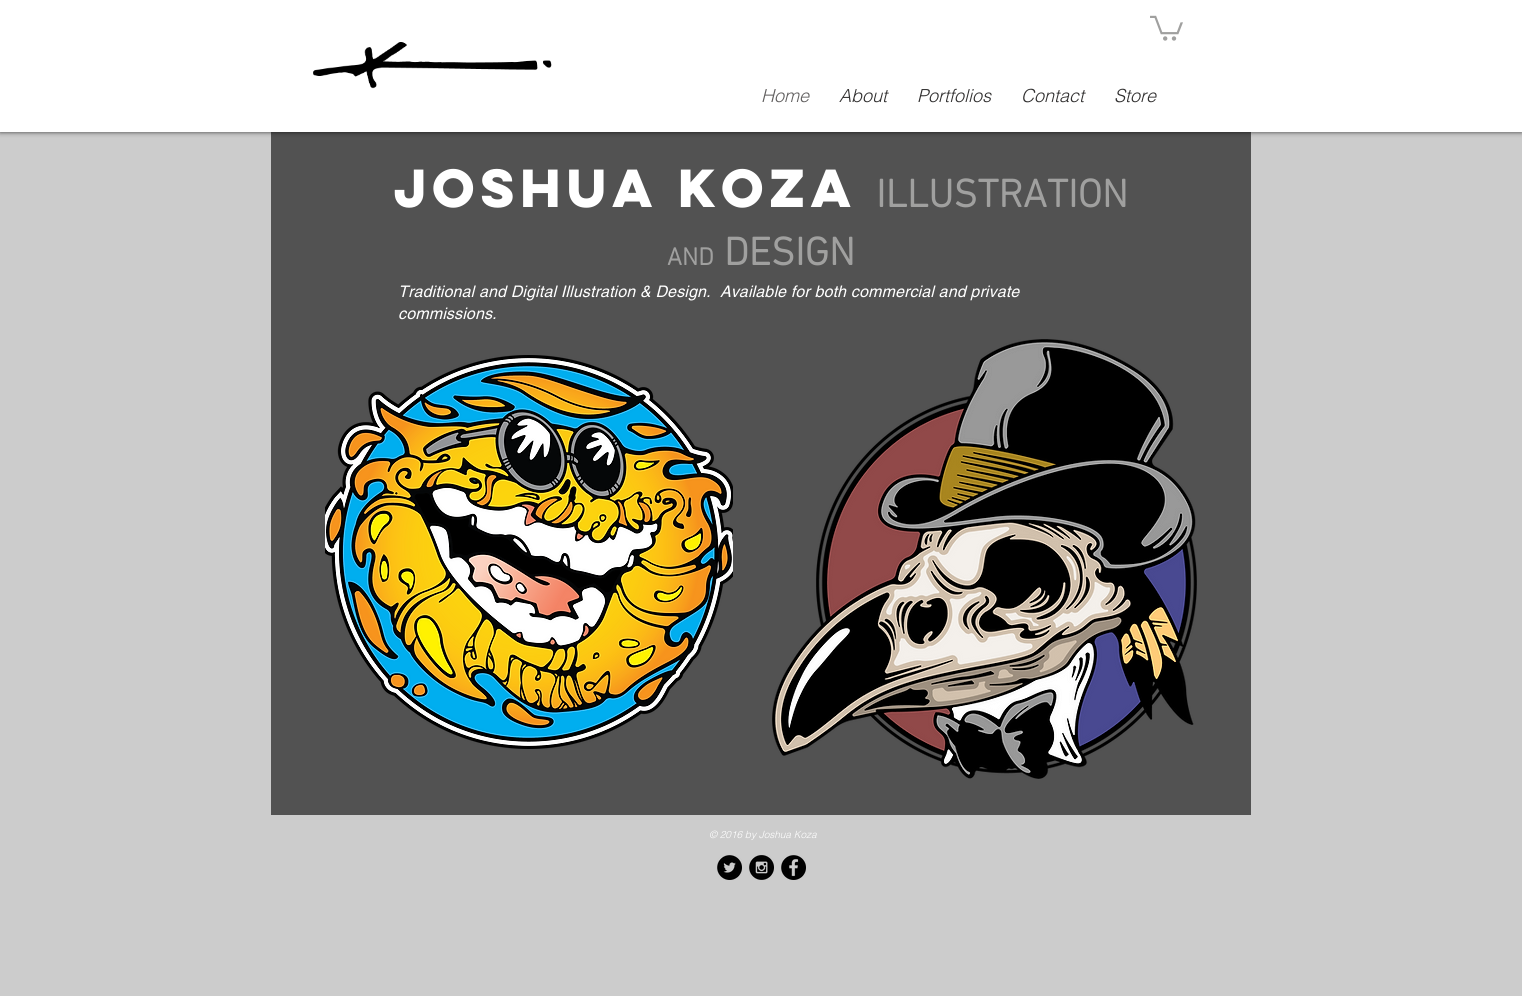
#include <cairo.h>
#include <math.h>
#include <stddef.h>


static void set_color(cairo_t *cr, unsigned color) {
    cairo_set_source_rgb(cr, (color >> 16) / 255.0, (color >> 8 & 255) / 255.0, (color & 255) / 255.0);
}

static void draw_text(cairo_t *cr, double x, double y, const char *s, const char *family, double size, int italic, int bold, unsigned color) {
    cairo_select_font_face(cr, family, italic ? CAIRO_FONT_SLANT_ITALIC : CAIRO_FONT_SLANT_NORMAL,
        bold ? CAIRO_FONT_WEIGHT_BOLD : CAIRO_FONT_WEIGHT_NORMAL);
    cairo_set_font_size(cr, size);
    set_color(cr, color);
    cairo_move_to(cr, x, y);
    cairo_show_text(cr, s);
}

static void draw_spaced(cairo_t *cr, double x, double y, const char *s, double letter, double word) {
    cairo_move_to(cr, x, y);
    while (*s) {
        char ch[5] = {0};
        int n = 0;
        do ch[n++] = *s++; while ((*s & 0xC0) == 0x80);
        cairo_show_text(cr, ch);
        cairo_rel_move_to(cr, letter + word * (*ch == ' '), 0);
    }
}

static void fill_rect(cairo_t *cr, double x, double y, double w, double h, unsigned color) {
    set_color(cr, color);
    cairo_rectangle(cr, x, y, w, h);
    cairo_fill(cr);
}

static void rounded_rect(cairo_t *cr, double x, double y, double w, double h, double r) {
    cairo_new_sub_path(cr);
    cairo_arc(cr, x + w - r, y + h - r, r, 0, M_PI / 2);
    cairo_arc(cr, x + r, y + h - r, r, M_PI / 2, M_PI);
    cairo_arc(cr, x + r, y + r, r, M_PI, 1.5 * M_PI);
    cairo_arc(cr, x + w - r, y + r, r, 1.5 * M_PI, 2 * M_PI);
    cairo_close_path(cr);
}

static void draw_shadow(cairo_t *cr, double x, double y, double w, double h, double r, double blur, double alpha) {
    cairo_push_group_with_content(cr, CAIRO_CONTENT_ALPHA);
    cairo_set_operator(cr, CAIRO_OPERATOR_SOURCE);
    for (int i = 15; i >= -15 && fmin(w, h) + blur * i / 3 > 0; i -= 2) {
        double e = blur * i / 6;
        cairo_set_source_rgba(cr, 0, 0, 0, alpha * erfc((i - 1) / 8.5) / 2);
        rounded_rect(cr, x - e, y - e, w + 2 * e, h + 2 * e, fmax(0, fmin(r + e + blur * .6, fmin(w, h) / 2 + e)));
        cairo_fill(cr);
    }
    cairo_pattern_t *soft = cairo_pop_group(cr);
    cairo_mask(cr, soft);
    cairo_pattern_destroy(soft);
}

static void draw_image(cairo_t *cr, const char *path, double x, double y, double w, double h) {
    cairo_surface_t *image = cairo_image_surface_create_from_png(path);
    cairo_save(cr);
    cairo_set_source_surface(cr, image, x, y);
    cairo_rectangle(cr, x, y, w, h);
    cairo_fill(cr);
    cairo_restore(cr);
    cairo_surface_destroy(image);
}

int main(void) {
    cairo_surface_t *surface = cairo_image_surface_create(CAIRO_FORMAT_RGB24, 1522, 996);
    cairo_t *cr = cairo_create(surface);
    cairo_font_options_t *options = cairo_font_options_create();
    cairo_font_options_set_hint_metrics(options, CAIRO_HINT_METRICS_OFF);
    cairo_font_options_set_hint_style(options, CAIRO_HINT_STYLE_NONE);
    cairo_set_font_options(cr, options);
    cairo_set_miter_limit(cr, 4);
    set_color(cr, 0xCCCCCC);
    cairo_paint(cr);
    set_color(cr, 0x000000);
    draw_shadow(cr, 0, 0, 1522, 132, 0, 2.5, 0.7);
    fill_rect(cr, 0, 0, 1522, 132, 0xFFFFFF);
    draw_image(cr, "assets/img1.png", 1150, 15, 33, 26);
    draw_image(cr, "assets/img2.png", 313, 42, 239, 47);
    draw_text(cr, 761, 102, "Home", "helvetica Light", 18, 1, 0, 0x605E5E);
    draw_text(cr, 839, 102, "About", "helvetica Light", 18, 1, 0, 0x2F2E2E);
    draw_text(cr, 917, 102, "Portfolios", "helvetica Light", 18, 1, 0, 0x2F2E2E);
    draw_text(cr, 1021, 102, "Contact", "helvetica Light", 18, 1, 0, 0x2F2E2E);
    draw_text(cr, 1114, 102, "Store", "helvetica Light", 18, 1, 0, 0x2F2E2E);
    cairo_set_source_rgba(cr, 0, 0, 0, 0.6);
    cairo_rectangle(cr, 271, 132, 980, 683);
    cairo_fill(cr);
    cairo_select_font_face(cr, "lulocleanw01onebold", CAIRO_FONT_SLANT_NORMAL, CAIRO_FONT_WEIGHT_BOLD);
    cairo_set_font_size(cr, 48);
    set_color(cr, 0xFFFFFF);
    draw_spaced(cr, 394, 207, "JOSHUA KOZA", -4.75, 0);
    draw_text(cr, 876, 207, "ILLUSTRATION", "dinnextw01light", 40, 0, 1, 0xA0A09F);
    draw_text(cr, 667, 265, "AND", "dinnextw01light", 25, 0, 1, 0xA0A09F);
    draw_text(cr, 724, 265, "DESIGN", "dinnextw01light", 40, 0, 1, 0xA0A09F);
    cairo_select_font_face(cr, "helvetica", CAIRO_FONT_SLANT_ITALIC, CAIRO_FONT_WEIGHT_NORMAL);
    cairo_set_font_size(cr, 16);
    set_color(cr, 0xFFFFFF);
    draw_spaced(cr, 398, 297, "Traditional and Digital Illustration & Design.  Available for both commercial and private", 0.15, 0);
    draw_spaced(cr, 398, 319, "commissions.", 0.15, 0);
    draw_image(cr, "assets/img3.png", 325, 355, 408, 394);
    draw_image(cr, "assets/img4.png", 772, 339, 425, 440);
    draw_text(cr, 709, 838, "© 2016 by Joshua Koza", "helvetica Light", 10, 1, 0, 0xFFFFFF);
    draw_image(cr, "assets/img5.png", 717, 855, 25, 25);
    draw_image(cr, "assets/img6.png", 749, 855, 25, 25);
    draw_image(cr, "assets/img7.png", 781, 855, 25, 25);
    cairo_surface_write_to_png(surface, "output.png");
    cairo_font_options_destroy(options);
    cairo_destroy(cr);
    cairo_surface_destroy(surface);
    return 0;
}
